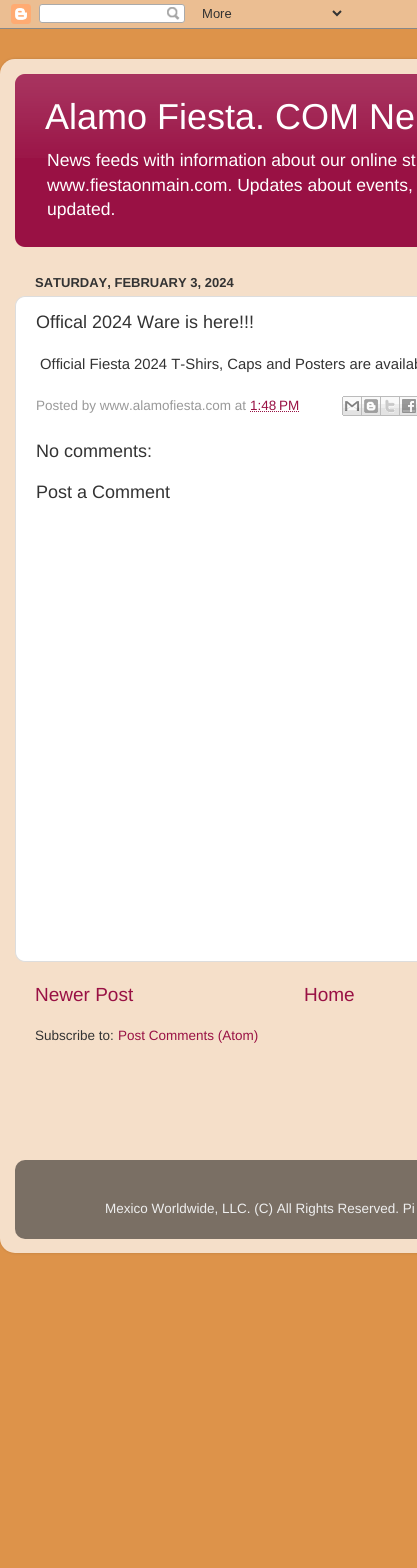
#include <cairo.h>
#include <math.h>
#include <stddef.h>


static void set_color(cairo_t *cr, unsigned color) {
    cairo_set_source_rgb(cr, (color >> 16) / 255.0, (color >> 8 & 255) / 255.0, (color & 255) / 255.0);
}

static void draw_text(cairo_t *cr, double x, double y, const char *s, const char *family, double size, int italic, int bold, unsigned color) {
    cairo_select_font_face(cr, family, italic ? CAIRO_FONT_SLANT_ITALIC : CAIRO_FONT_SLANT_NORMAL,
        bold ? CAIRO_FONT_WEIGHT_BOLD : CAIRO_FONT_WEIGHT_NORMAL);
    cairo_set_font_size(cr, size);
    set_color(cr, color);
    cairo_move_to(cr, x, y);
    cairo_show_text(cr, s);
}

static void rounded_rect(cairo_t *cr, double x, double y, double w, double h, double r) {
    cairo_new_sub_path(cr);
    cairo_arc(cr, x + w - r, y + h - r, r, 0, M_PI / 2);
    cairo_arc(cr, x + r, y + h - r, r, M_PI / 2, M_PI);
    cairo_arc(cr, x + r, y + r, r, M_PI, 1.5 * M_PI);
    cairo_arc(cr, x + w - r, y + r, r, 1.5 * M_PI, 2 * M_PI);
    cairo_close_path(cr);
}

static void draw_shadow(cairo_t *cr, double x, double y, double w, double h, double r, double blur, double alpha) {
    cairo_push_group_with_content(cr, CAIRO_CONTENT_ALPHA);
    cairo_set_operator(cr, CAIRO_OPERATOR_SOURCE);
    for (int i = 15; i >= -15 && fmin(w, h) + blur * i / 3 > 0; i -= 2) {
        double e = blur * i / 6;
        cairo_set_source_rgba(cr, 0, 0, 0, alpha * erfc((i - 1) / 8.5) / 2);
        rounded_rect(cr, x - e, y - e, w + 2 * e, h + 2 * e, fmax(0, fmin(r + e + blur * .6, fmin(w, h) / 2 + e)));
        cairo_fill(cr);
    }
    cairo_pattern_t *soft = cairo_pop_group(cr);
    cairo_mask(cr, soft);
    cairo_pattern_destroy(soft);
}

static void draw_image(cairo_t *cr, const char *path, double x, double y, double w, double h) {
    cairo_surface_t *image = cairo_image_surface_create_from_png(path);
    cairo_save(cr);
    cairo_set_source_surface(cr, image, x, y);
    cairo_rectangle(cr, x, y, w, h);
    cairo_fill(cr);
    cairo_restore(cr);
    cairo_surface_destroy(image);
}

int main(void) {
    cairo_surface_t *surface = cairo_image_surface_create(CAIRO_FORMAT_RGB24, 417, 1568);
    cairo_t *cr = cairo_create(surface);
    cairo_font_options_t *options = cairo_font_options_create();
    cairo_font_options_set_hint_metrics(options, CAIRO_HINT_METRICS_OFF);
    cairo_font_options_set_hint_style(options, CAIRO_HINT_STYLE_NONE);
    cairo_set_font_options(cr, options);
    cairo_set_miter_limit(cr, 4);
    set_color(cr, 0xDD934A);
    cairo_paint(cr);
    draw_image(cr, "assets/img1.png", 0, 0, 417, 29);
    cairo_save(cr);
    cairo_set_fill_rule(cr, CAIRO_FILL_RULE_EVEN_ODD);
    cairo_new_path(cr);
    cairo_move_to(cr, 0, 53);
    cairo_line_to(cr, 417, 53);
    cairo_line_to(cr, 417, 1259);
    cairo_line_to(cr, 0, 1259);
    cairo_close_path(cr);
    cairo_move_to(cr, 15, 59);
    cairo_line_to(cr, 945, 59);
    cairo_curve_to(cr, 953.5, 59, 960, 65.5, 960, 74);
    cairo_line_to(cr, 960, 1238);
    cairo_curve_to(cr, 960, 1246.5, 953.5, 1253, 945, 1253);
    cairo_line_to(cr, 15, 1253);
    cairo_curve_to(cr, 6.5, 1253, 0, 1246.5, 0, 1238);
    cairo_line_to(cr, 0, 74);
    cairo_curve_to(cr, 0, 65.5, 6.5, 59, 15, 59);
    cairo_close_path(cr);
    cairo_clip(cr);
    set_color(cr, 0x000000);
    draw_shadow(cr, 0, 59, 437, 1194, 15, 1.5, 0.15);
    cairo_restore(cr);
    draw_image(cr, "assets/img2.png", 0, 59, 417, 1194);
    set_color(cr, 0x991144);
    rounded_rect(cr, 15, 74, 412, 173, 10);
    cairo_fill(cr);
    draw_image(cr, "assets/img3.png", 15, 74, 402, 84);
    draw_text(cr, 45, 129, "Alamo Fiesta. COM Ne", "Liberation Sans", 36, 0, 0, 0xFFFFFF);
    draw_text(cr, 47, 166, "News feeds with information about our online st", "Liberation Sans", 17.55, 0, 0, 0xFFFFFF);
    draw_text(cr, 47, 191, "www.fiestaonmain.com. Updates about events,", "Liberation Sans", 17.55, 0, 0, 0xFFFFFF);
    draw_text(cr, 47, 215, "updated.", "Liberation Sans", 17.55, 0, 0, 0xFFFFFF);
    draw_text(cr, 35, 287, "SATURDAY, FEBRUARY 3, 2024", "Liberation Sans", 13, 0, 1, 0x333333);
    set_color(cr, 0xFFFFFF);
    rounded_rect(cr, 15.5, 296.5, 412, 665, 9.5);
    cairo_fill_preserve(cr);
    set_color(cr, 0xDDDDDD);
    cairo_set_line_width(cr, 1);
    cairo_stroke(cr);
    draw_text(cr, 36, 328, "Offical 2024 Ware is here!!!", "Liberation Sans", 18, 0, 0, 0x333333);
    draw_text(cr, 40, 369, "Official Fiesta 2024 T-Shirs, Caps and Posters are availab", "Liberation Sans", 14.85, 0, 0, 0x333333);
    draw_text(cr, 36, 410, "Posted by www.alamofiesta.com at", "Liberation Sans", 13.5, 0, 0, 0x999999);
    draw_text(cr, 250, 410, "1:48 PM", "Liberation Sans", 13.5, 0, 0, 0x991144);
    cairo_new_path(cr);
    cairo_move_to(cr, 250, 411.5);
    cairo_line_to(cr, 299, 411.5);
    cairo_set_dash(cr, (double[]){1, 1}, 2, 0);
    cairo_stroke(cr);
    draw_image(cr, "assets/img4.png", 342, 396, 20, 20);
    draw_image(cr, "assets/img5.png", 362, 396, 19, 20);
    draw_image(cr, "assets/img6.png", 381, 396, 19, 20);
    draw_image(cr, "assets/img7.png", 400, 396, 17, 20);
    draw_text(cr, 36, 457, "No comments:", "Liberation Sans", 18, 0, 0, 0x333333);
    draw_text(cr, 36, 498, "Post a Comment", "Liberation Sans", 18, 0, 0, 0x333333);
    draw_text(cr, 35, 1001, "Newer Post", "Liberation Sans", 19, 0, 0, 0x991144);
    draw_text(cr, 304, 1001, "Home", "Liberation Sans", 19, 0, 0, 0x991144);
    draw_text(cr, 35, 1040, "Subscribe to:", "Liberation Sans", 13.5, 0, 0, 0x333333);
    draw_text(cr, 118, 1040, "Post Comments (Atom)", "Liberation Sans", 13.5, 0, 0, 0x991144);
    draw_image(cr, "assets/img8.png", 15, 1160, 402, 79);
    draw_text(cr, 105, 1213, "Mexico Worldwide, LLC. (C) All Rights Reserved. Pi", "Liberation Sans", 13.5, 0, 0, 0xEEEEEE);
    cairo_surface_write_to_png(surface, "output.png");
    cairo_font_options_destroy(options);
    cairo_destroy(cr);
    cairo_surface_destroy(surface);
    return 0;
}
